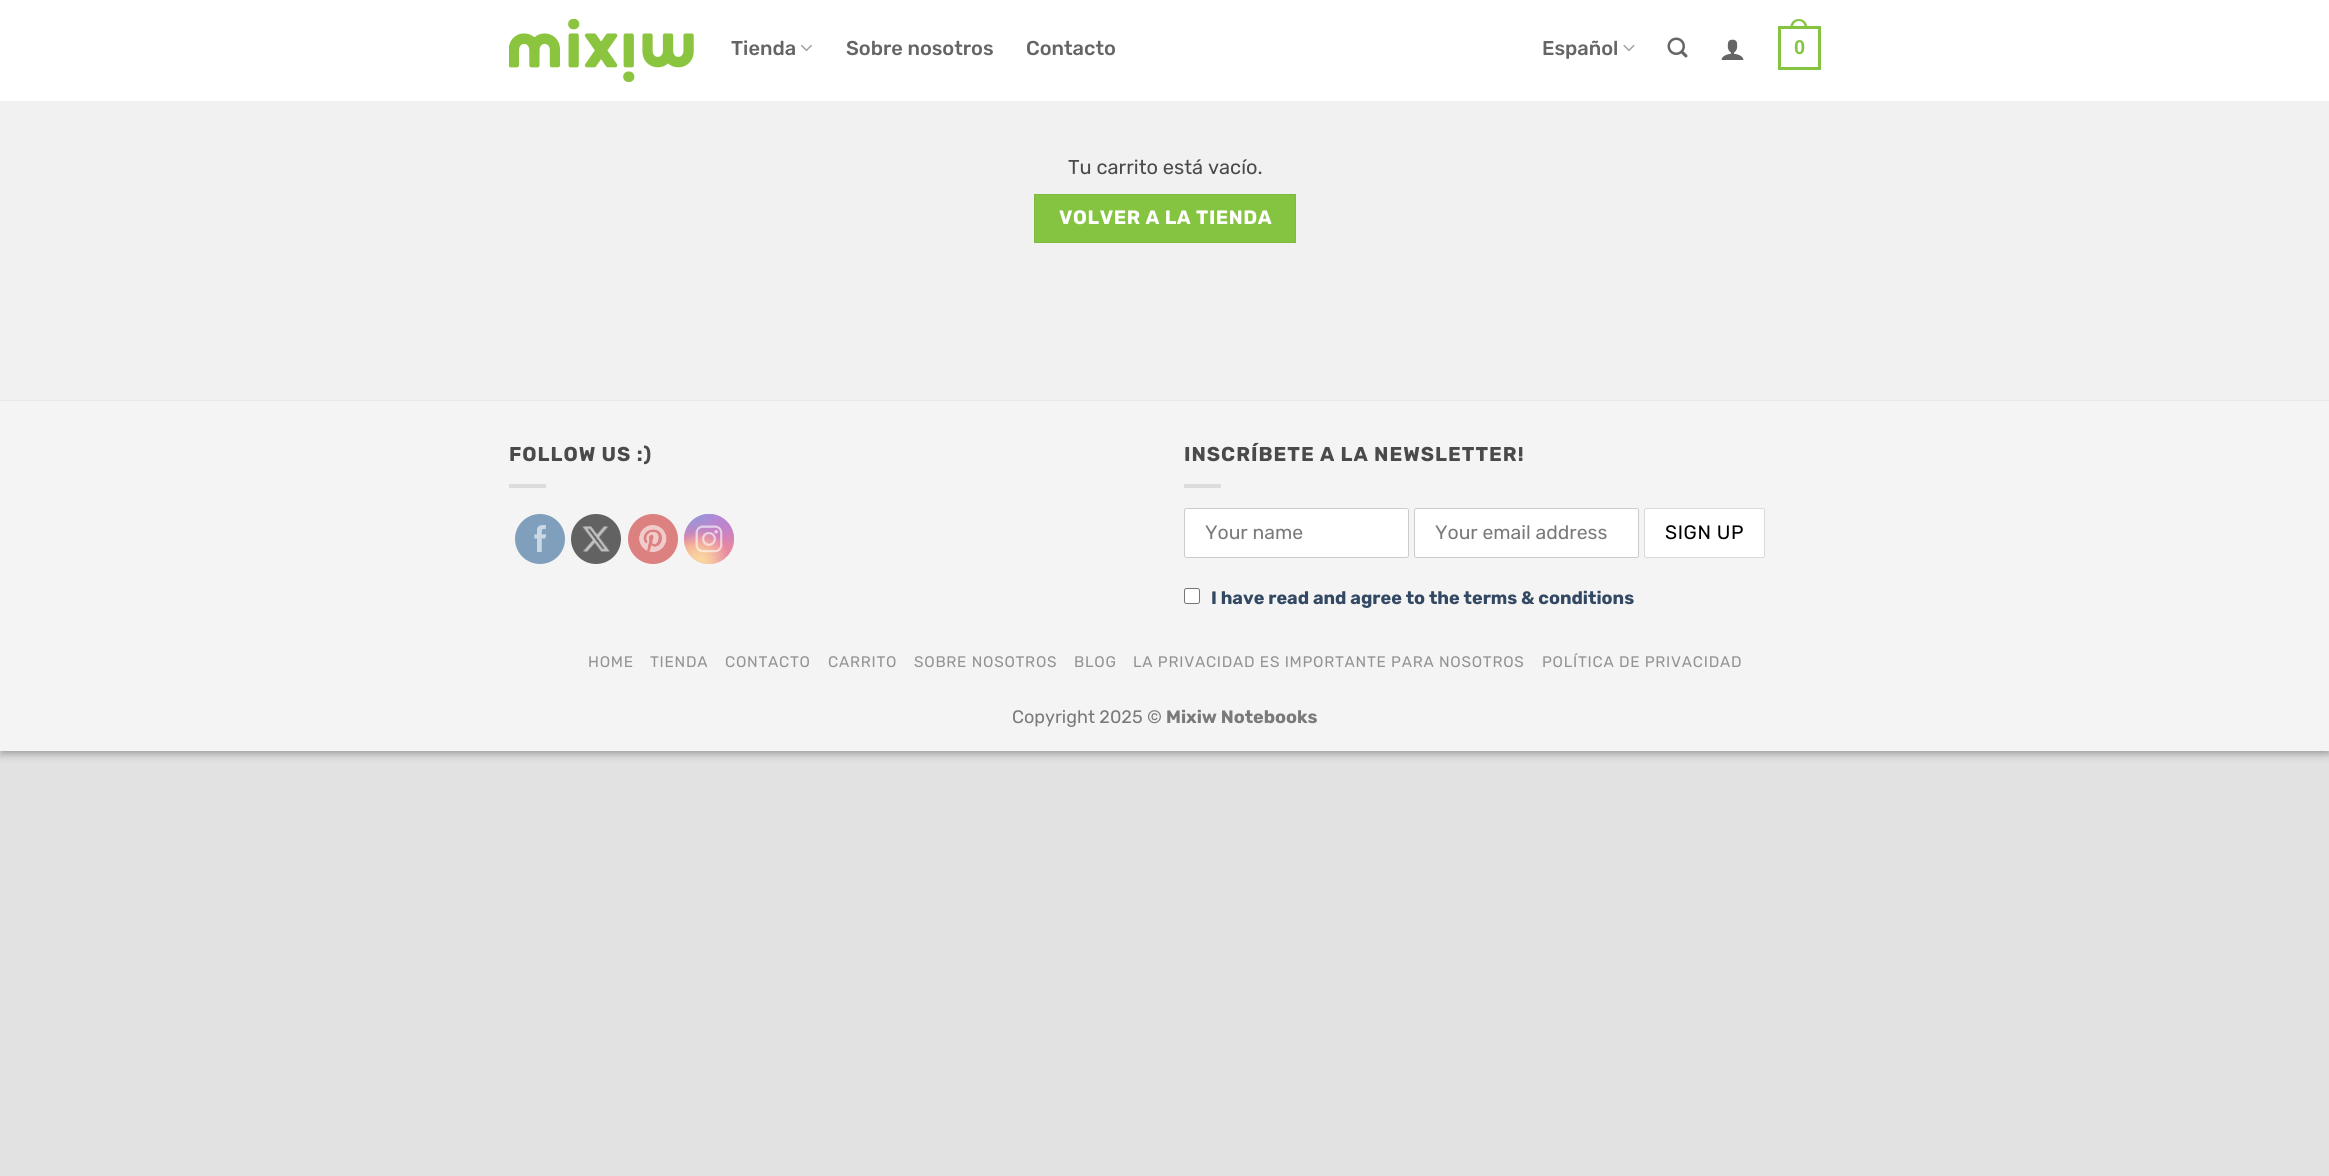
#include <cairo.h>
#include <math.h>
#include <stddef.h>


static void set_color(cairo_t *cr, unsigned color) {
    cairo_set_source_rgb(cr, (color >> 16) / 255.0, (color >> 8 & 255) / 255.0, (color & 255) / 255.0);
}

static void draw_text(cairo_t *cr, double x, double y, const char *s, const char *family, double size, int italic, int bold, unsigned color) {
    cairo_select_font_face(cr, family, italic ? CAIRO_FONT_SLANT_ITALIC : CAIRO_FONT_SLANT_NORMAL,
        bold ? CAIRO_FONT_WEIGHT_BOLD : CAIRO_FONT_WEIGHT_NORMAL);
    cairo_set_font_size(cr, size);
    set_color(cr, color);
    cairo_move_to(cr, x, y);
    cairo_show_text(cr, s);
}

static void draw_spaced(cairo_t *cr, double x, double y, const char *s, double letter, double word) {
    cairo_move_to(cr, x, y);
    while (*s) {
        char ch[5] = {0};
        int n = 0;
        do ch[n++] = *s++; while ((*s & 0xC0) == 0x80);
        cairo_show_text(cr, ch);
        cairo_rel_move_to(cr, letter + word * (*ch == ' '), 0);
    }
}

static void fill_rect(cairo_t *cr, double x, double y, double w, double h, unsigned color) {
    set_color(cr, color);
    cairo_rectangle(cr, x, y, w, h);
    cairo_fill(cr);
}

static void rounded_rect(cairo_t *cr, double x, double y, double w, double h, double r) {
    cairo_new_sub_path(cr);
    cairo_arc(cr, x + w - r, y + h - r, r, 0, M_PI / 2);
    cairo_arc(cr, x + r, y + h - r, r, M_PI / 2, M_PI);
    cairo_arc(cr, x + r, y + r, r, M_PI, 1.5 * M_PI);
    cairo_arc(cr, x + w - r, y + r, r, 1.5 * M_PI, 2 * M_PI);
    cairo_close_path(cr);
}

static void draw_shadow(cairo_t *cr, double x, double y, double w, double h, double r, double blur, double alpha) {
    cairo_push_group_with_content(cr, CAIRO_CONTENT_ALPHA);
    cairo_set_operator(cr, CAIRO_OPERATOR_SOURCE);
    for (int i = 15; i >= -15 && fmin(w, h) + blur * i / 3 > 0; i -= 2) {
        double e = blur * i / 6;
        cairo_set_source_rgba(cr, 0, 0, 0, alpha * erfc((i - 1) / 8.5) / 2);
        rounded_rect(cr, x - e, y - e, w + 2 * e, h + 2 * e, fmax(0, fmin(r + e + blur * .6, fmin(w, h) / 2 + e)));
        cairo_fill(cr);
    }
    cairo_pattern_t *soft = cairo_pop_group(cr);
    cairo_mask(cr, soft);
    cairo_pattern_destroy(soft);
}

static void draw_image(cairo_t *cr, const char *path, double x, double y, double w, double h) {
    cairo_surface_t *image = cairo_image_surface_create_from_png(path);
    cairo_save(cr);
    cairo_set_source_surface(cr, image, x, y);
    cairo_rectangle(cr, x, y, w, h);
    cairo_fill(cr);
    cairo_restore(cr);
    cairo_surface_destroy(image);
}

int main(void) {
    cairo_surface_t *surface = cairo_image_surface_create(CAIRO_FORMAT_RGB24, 2329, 1176);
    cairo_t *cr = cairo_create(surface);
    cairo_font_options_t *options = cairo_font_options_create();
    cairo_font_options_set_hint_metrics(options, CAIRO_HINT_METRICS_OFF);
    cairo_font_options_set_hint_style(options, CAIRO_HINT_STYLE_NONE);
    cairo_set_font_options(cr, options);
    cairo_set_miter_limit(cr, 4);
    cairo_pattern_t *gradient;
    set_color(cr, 0xE2E2E2);
    cairo_paint(cr);
    set_color(cr, 0x000000);
    draw_shadow(cr, 0, 4, 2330, 751, 0, 4, 0.23);
    draw_shadow(cr, 5, 9, 2320, 741, 0, 4, 0.16);
    fill_rect(cr, 0, 0, 2329, 101, 0xFFFFFF);
    draw_image(cr, "assets/img1.png", 509, 19, 185, 64);
    draw_text(cr, 731, 55, "Tienda", "Rubik Medium", 20, 0, 0, 0x656565);
    draw_image(cr, "assets/img2.png", 800, 44, 12, 8);
    draw_text(cr, 846, 55, "Sobre nosotros", "Rubik Medium", 20, 0, 0, 0x656565);
    draw_text(cr, 1026, 55, "Contacto", "Rubik Medium", 20, 0, 0, 0x656565);
    draw_text(cr, 1542, 55, "Español", "Rubik Medium", 20, 0, 0, 0x656565);
    draw_image(cr, "assets/img3.png", 1623, 44, 12, 8);
    draw_image(cr, "assets/img4.png", 1667, 37, 21, 21);
    draw_image(cr, "assets/img5.png", 1721, 39, 23, 21);
    cairo_rectangle(cr, 1779.5, 27.5, 40, 41);
    set_color(cr, 0x85C441);
    cairo_set_line_width(cr, 3);
    cairo_stroke(cr);
    cairo_set_fill_rule(cr, CAIRO_FILL_RULE_EVEN_ODD);
    cairo_new_path(cr);
    cairo_move_to(cr, 1799, 19);
    cairo_curve_to(cr, 1804.5, 19, 1807.5, 23.5, 1807.5, 29);
    cairo_line_to(cr, 1790, 29);
    cairo_curve_to(cr, 1790, 23.5, 1793, 19, 1799, 19);
    cairo_close_path(cr);
    cairo_move_to(cr, 1799, 21);
    cairo_curve_to(cr, 1803, 21, 1805, 25, 1805, 29);
    cairo_line_to(cr, 1792.5, 29);
    cairo_curve_to(cr, 1792.5, 25, 1794.5, 21, 1799, 21);
    cairo_close_path(cr);
    cairo_fill(cr);
    draw_text(cr, 1794, 54, "0", "Liberation Sans", 20, 0, 1, 0x85C441);
    fill_rect(cr, 0, 101, 2329, 299, 0xF1F1F1);
    draw_text(cr, 1068, 174, "Tu carrito está vacío.", "Rubik", 20, 0, 0, 0x4A4A4A);
    set_color(cr, 0x85C441);
    cairo_rectangle(cr, 1034.5, 194.5, 261, 48);
    cairo_fill_preserve(cr);
    set_color(cr, 0x7EBA3E);
    cairo_set_line_width(cr, 1);
    cairo_stroke(cr);
    cairo_select_font_face(cr, "Rubik", CAIRO_FONT_SLANT_NORMAL, CAIRO_FONT_WEIGHT_BOLD);
    cairo_set_font_size(cr, 19.4);
    set_color(cr, 0xFFFFFF);
    draw_spaced(cr, 1059, 224, "VOLVER A LA TIENDA", 0.6, 0);
    fill_rect(cr, 0, 401, 2329, 350, 0xF4F4F4);
    fill_rect(cr, 0, 400, 2329, 1, 0xE8E8E8);
    cairo_set_font_size(cr, 20);
    set_color(cr, 0x4A4A4A);
    draw_spaced(cr, 509, 461, "FOLLOW US :)", 1, 0);
    fill_rect(cr, 509, 484, 37, 4, 0xDCDCDC);
    set_color(cr, 0x809FBD);
    cairo_new_path(cr);
    cairo_arc(cr, 540, 539, 25, 0, 2 * M_PI);
    cairo_fill(cr);
    draw_image(cr, "assets/img6.png", 534, 525, 13, 27);
    set_color(cr, 0x626262);
    cairo_arc(cr, 596, 539, 25, 0, 2 * M_PI);
    cairo_fill(cr);
    draw_image(cr, "assets/img7.png", 582, 526, 28, 26);
    set_color(cr, 0xDC8080);
    cairo_arc(cr, 653, 539, 25, 0, 2 * M_PI);
    cairo_fill(cr);
    draw_image(cr, "assets/img8.png", 639, 525, 28, 27);
    gradient = cairo_pattern_create_linear(709, 514, 709, 564);
    cairo_pattern_add_color_stop_rgba(gradient, 0, 0.62, 0.592, 0.859, 1);
    cairo_pattern_add_color_stop_rgba(gradient, 0.3, 0.824, 0.498, 0.718, 1);
    cairo_pattern_add_color_stop_rgba(gradient, 0.5, 0.918, 0.529, 0.608, 1);
    cairo_pattern_add_color_stop_rgba(gradient, 0.7, 0.965, 0.659, 0.514, 1);
    cairo_pattern_add_color_stop_rgba(gradient, 1, 0.98, 0.847, 0.639, 1);
    cairo_set_source(cr, gradient);
    cairo_pattern_destroy(gradient);
    cairo_arc(cr, 709, 539, 25, 0, 2 * M_PI);
    cairo_fill(cr);
    gradient = cairo_pattern_create_radial(734, 564, 0, 734, 564, 71);
    cairo_pattern_add_color_stop_rgba(gradient, 0, 0.894, 0.498, 0.671, 1);
    cairo_pattern_add_color_stop_rgba(gradient, 1, 0.894, 0.498, 0.671, 0);
    cairo_set_source(cr, gradient);
    cairo_pattern_destroy(gradient);
    cairo_arc(cr, 709, 539, 25, 0, 2 * M_PI);
    cairo_fill(cr);
    gradient = cairo_pattern_create_radial(0, 0, 0, 0, 0, 1);
    cairo_pattern_set_matrix(gradient, &(cairo_matrix_t){1.0 / 42, 0, 0, 1.0 / 85, -1.0 * 714 / 42, -1.0 * 504 / 85});
    cairo_pattern_add_color_stop_rgba(gradient, 0, 0.706, 0.525, 0.839, 1);
    cairo_pattern_add_color_stop_rgba(gradient, 0.5, 0.706, 0.525, 0.839, 0);
    cairo_set_source(cr, gradient);
    cairo_pattern_destroy(gradient);
    cairo_arc(cr, 709, 539, 25, 0, 2 * M_PI);
    cairo_fill(cr);
    gradient = cairo_pattern_create_radial(734, 514, 0, 734, 514, 71);
    cairo_pattern_add_color_stop_rgba(gradient, 0, 0.706, 0.525, 0.839, 1);
    cairo_pattern_add_color_stop_rgba(gradient, 0.5, 0.706, 0.525, 0.839, 0);
    cairo_set_source(cr, gradient);
    cairo_pattern_destroy(gradient);
    cairo_arc(cr, 709, 539, 25, 0, 2 * M_PI);
    cairo_fill(cr);
    gradient = cairo_pattern_create_radial(0, 0, 0, 0, 0, 1);
    cairo_pattern_set_matrix(gradient, &(cairo_matrix_t){1.0 / 57, 0, 0, 1.0 / 106, -1.0 * 694 / 57, -1.0 * 489 / 106});
    cairo_pattern_add_color_stop_rgba(gradient, 0, 0.576, 0.588, 0.871, 1);
    cairo_pattern_add_color_stop_rgba(gradient, 0.5, 0.576, 0.588, 0.871, 0);
    cairo_set_source(cr, gradient);
    cairo_pattern_destroy(gradient);
    cairo_arc(cr, 709, 539, 25, 0, 2 * M_PI);
    cairo_fill(cr);
    gradient = cairo_pattern_create_radial(0, 0, 0, 0, 0, 1);
    cairo_pattern_set_matrix(gradient, &(cairo_matrix_t){1.0 / 71, 0, 0, 1.0 / 88, -1.0 * 684 / 71, -1.0 * 501 / 88});
    cairo_pattern_add_color_stop_rgba(gradient, 0, 0.576, 0.588, 0.871, 1);
    cairo_pattern_add_color_stop_rgba(gradient, 0.5, 0.576, 0.588, 0.871, 0);
    cairo_set_source(cr, gradient);
    cairo_pattern_destroy(gradient);
    cairo_arc(cr, 709, 539, 25, 0, 2 * M_PI);
    cairo_fill(cr);
    gradient = cairo_pattern_create_radial(684, 584, 0, 684, 584, 86);
    cairo_pattern_add_color_stop_rgba(gradient, 0, 0.98, 0.847, 0.62, 1);
    cairo_pattern_add_color_stop_rgba(gradient, 0.5, 0.98, 0.847, 0.62, 0);
    cairo_set_source(cr, gradient);
    cairo_pattern_destroy(gradient);
    cairo_arc(cr, 709, 539, 25, 0, 2 * M_PI);
    cairo_fill(cr);
    gradient = cairo_pattern_create_radial(701, 559, 0, 701, 559, 56);
    cairo_pattern_add_color_stop_rgba(gradient, 0, 0.98, 0.847, 0.62, 1);
    cairo_pattern_add_color_stop_rgba(gradient, 0.5, 0.98, 0.847, 0.62, 0);
    cairo_set_source(cr, gradient);
    cairo_pattern_destroy(gradient);
    cairo_arc(cr, 709, 539, 25, 0, 2 * M_PI);
    cairo_fill(cr);
    draw_image(cr, "assets/img9.png", 695, 525, 28, 28);
    set_color(cr, 0x4A4A4A);
    draw_spaced(cr, 1184, 461, "INSCRÍBETE A LA NEWSLETTER!", 1, 0);
    fill_rect(cr, 1184, 484, 37, 4, 0xDCDCDC);
    set_color(cr, 0xFFFFFF);
    rounded_rect(cr, 1184.5, 508.5, 224, 49, 2);
    cairo_fill_preserve(cr);
    set_color(cr, 0xCCCCCC);
    cairo_stroke(cr);
    draw_text(cr, 1205, 539, "Your name", "Rubik", 19.4, 0, 0, 0x7A7A7A);
    set_color(cr, 0xFFFFFF);
    rounded_rect(cr, 1414.5, 508.5, 224, 49, 2);
    cairo_fill_preserve(cr);
    set_color(cr, 0xCCCCCC);
    cairo_stroke(cr);
    draw_text(cr, 1435, 539, "Your email address", "Rubik", 19.4, 0, 0, 0x7A7A7A);
    set_color(cr, 0xFFFFFF);
    rounded_rect(cr, 1644.5, 508.5, 120, 49, 2);
    cairo_fill_preserve(cr);
    set_color(cr, 0xD9D9D9);
    cairo_stroke(cr);
    set_color(cr, 0x000000);
    draw_spaced(cr, 1665, 539, "SIGN UP", 0.6, 0);
    set_color(cr, 0xFFFFFF);
    rounded_rect(cr, 1184.5, 588.5, 15, 15, 2);
    cairo_fill_preserve(cr);
    set_color(cr, 0x767676);
    cairo_stroke(cr);
    draw_text(cr, 1211, 604, "I have read and agree to the terms & conditions", "Rubik", 18, 0, 1, 0x334862);
    cairo_select_font_face(cr, "Rubik", CAIRO_FONT_SLANT_NORMAL, CAIRO_FONT_WEIGHT_NORMAL);
    cairo_set_font_size(cr, 15.3);
    set_color(cr, 0x939393);
    draw_spaced(cr, 588, 667, "HOME", 0.75, 0);
    draw_spaced(cr, 650, 667, "TIENDA", 0.75, 0);
    draw_spaced(cr, 725, 667, "CONTACTO", 0.75, 0);
    draw_spaced(cr, 828, 667, "CARRITO", 0.75, 0);
    draw_spaced(cr, 914, 667, "SOBRE NOSOTROS", 0.75, 0);
    draw_spaced(cr, 1074, 667, "BLOG", 0.75, 0);
    draw_spaced(cr, 1133, 667, "LA PRIVACIDAD ES IMPORTANTE PARA NOSOTROS", 0.75, 0);
    draw_spaced(cr, 1542, 667, "POLÍTICA DE PRIVACIDAD", 0.75, 0);
    draw_text(cr, 1012, 723, "Copyright 2025 ©", "Rubik", 18, 0, 0, 0x7A7A7A);
    draw_text(cr, 1166, 723, "Mixiw Notebooks", "Rubik", 18, 0, 1, 0x7A7A7A);
    cairo_surface_write_to_png(surface, "output.png");
    cairo_font_options_destroy(options);
    cairo_destroy(cr);
    cairo_surface_destroy(surface);
    return 0;
}
